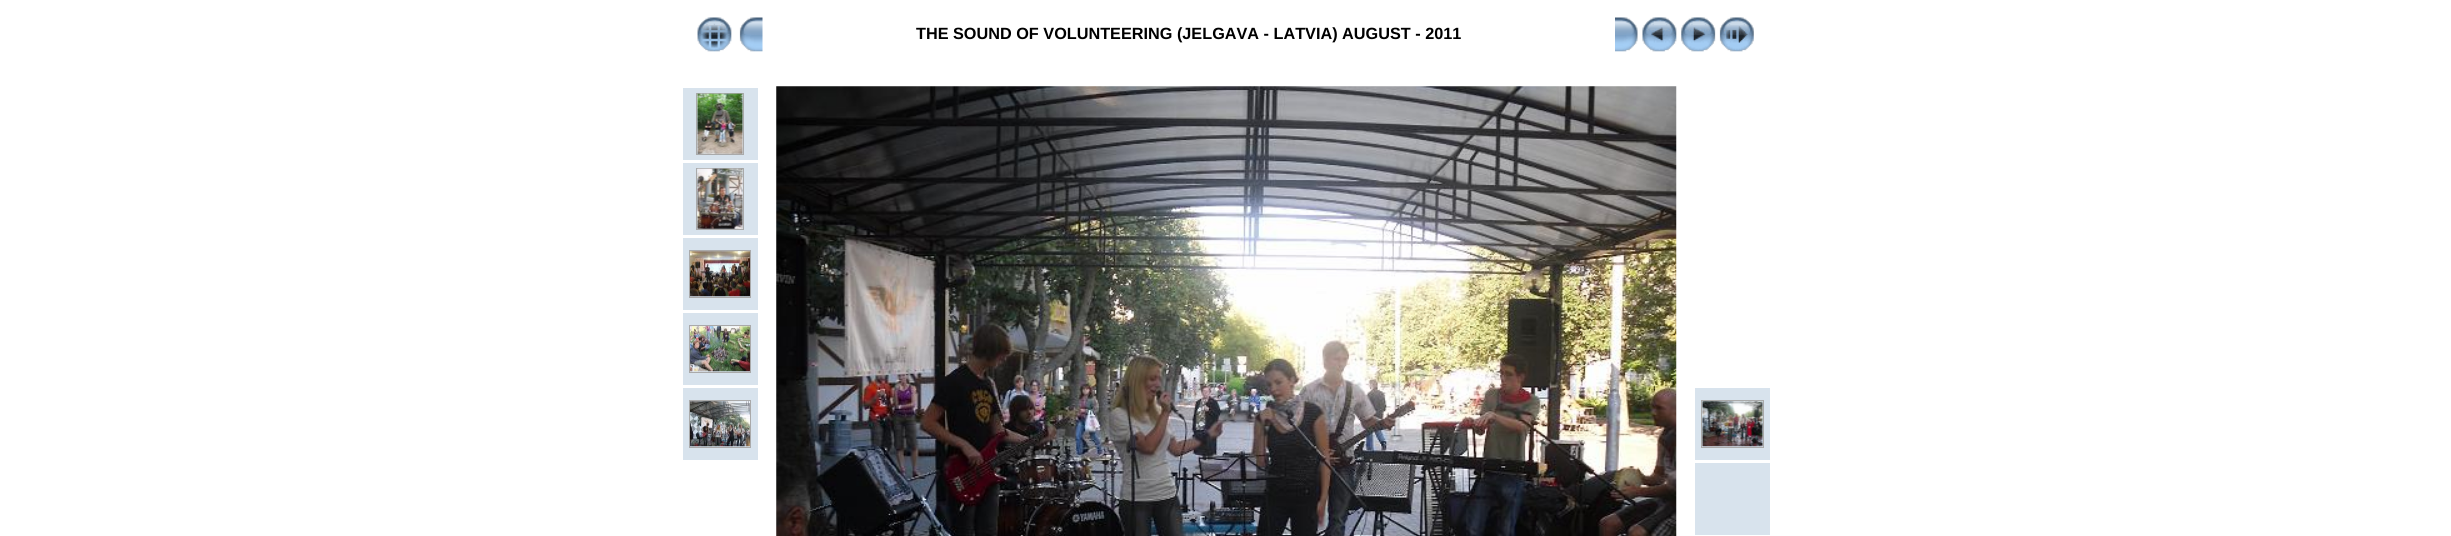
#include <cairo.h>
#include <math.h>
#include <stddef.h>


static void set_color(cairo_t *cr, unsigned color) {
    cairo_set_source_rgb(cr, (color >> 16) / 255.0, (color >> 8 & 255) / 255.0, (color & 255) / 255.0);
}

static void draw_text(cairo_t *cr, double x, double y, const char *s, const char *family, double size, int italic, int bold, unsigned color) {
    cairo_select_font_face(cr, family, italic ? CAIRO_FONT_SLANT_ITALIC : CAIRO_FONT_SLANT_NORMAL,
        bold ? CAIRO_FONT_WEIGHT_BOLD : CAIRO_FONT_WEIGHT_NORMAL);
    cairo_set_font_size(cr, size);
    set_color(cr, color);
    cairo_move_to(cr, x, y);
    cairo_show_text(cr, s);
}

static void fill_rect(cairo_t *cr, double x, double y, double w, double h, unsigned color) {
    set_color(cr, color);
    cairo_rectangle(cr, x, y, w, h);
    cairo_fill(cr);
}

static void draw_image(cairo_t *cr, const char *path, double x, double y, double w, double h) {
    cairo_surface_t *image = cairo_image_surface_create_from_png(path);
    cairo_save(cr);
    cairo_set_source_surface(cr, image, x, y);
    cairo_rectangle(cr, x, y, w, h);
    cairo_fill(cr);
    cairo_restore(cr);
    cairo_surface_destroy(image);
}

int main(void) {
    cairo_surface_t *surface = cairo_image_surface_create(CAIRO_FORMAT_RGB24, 2451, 536);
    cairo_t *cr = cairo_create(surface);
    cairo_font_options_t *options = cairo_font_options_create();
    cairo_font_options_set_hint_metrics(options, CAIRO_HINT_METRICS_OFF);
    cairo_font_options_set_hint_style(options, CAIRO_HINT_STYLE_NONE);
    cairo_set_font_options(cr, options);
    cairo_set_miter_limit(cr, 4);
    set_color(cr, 0xFFFFFF);
    cairo_paint(cr);
    draw_image(cr, "assets/img1.png", 697, 17, 35, 35);
    draw_image(cr, "assets/img2.png", 739, 17, 24, 35);
    draw_text(cr, 916, 39, "THE SOUND OF VOLUNTEERING (JELGAVA - LATVIA) AUGUST - 2011", "Liberation Sans", 16.25, 0, 1, 0x000000);
    draw_image(cr, "assets/img3.png", 1615, 17, 23, 35);
    draw_image(cr, "assets/img4.png", 1642, 17, 35, 35);
    draw_image(cr, "assets/img5.png", 1681, 17, 35, 35);
    draw_image(cr, "assets/img6.png", 1719, 17, 35, 35);
    fill_rect(cr, 683, 88, 75, 72, 0xD8E3ED);
    cairo_rectangle(cr, 696.5, 93.5, 47, 61);
    set_color(cr, 0xAAAAAA);
    cairo_set_line_width(cr, 1);
    cairo_stroke(cr);
    draw_image(cr, "assets/img7.png", 697, 93, 46, 61);
    fill_rect(cr, 683, 163, 75, 72, 0xD8E3ED);
    cairo_rectangle(cr, 696.5, 168.5, 47, 61);
    set_color(cr, 0xAAAAAA);
    cairo_stroke(cr);
    draw_image(cr, "assets/img8.png", 697, 168, 46, 61);
    fill_rect(cr, 683, 238, 75, 72, 0xD8E3ED);
    cairo_rectangle(cr, 689.5, 250.5, 61, 47);
    set_color(cr, 0xAAAAAA);
    cairo_stroke(cr);
    draw_image(cr, "assets/img9.png", 690, 251, 60, 46);
    fill_rect(cr, 683, 313, 75, 72, 0xD8E3ED);
    cairo_rectangle(cr, 689.5, 325.5, 61, 47);
    set_color(cr, 0xAAAAAA);
    cairo_stroke(cr);
    draw_image(cr, "assets/img10.png", 690, 326, 60, 46);
    fill_rect(cr, 683, 388, 75, 72, 0xD8E3ED);
    cairo_rectangle(cr, 689.5, 400.5, 61, 47);
    set_color(cr, 0xAAAAAA);
    cairo_stroke(cr);
    draw_image(cr, "assets/img11.png", 690, 401, 60, 46);
    draw_image(cr, "assets/img12.png", 776, 86, 901, 450);
    fill_rect(cr, 1695, 388, 75, 72, 0xD8E3ED);
    cairo_rectangle(cr, 1701.5, 400.5, 62, 47);
    set_color(cr, 0xAAAAAA);
    cairo_stroke(cr);
    draw_image(cr, "assets/img13.png", 1702, 401, 61, 46);
    fill_rect(cr, 1695, 463, 75, 72, 0xD8E3ED);
    cairo_surface_write_to_png(surface, "output.png");
    cairo_font_options_destroy(options);
    cairo_destroy(cr);
    cairo_surface_destroy(surface);
    return 0;
}
